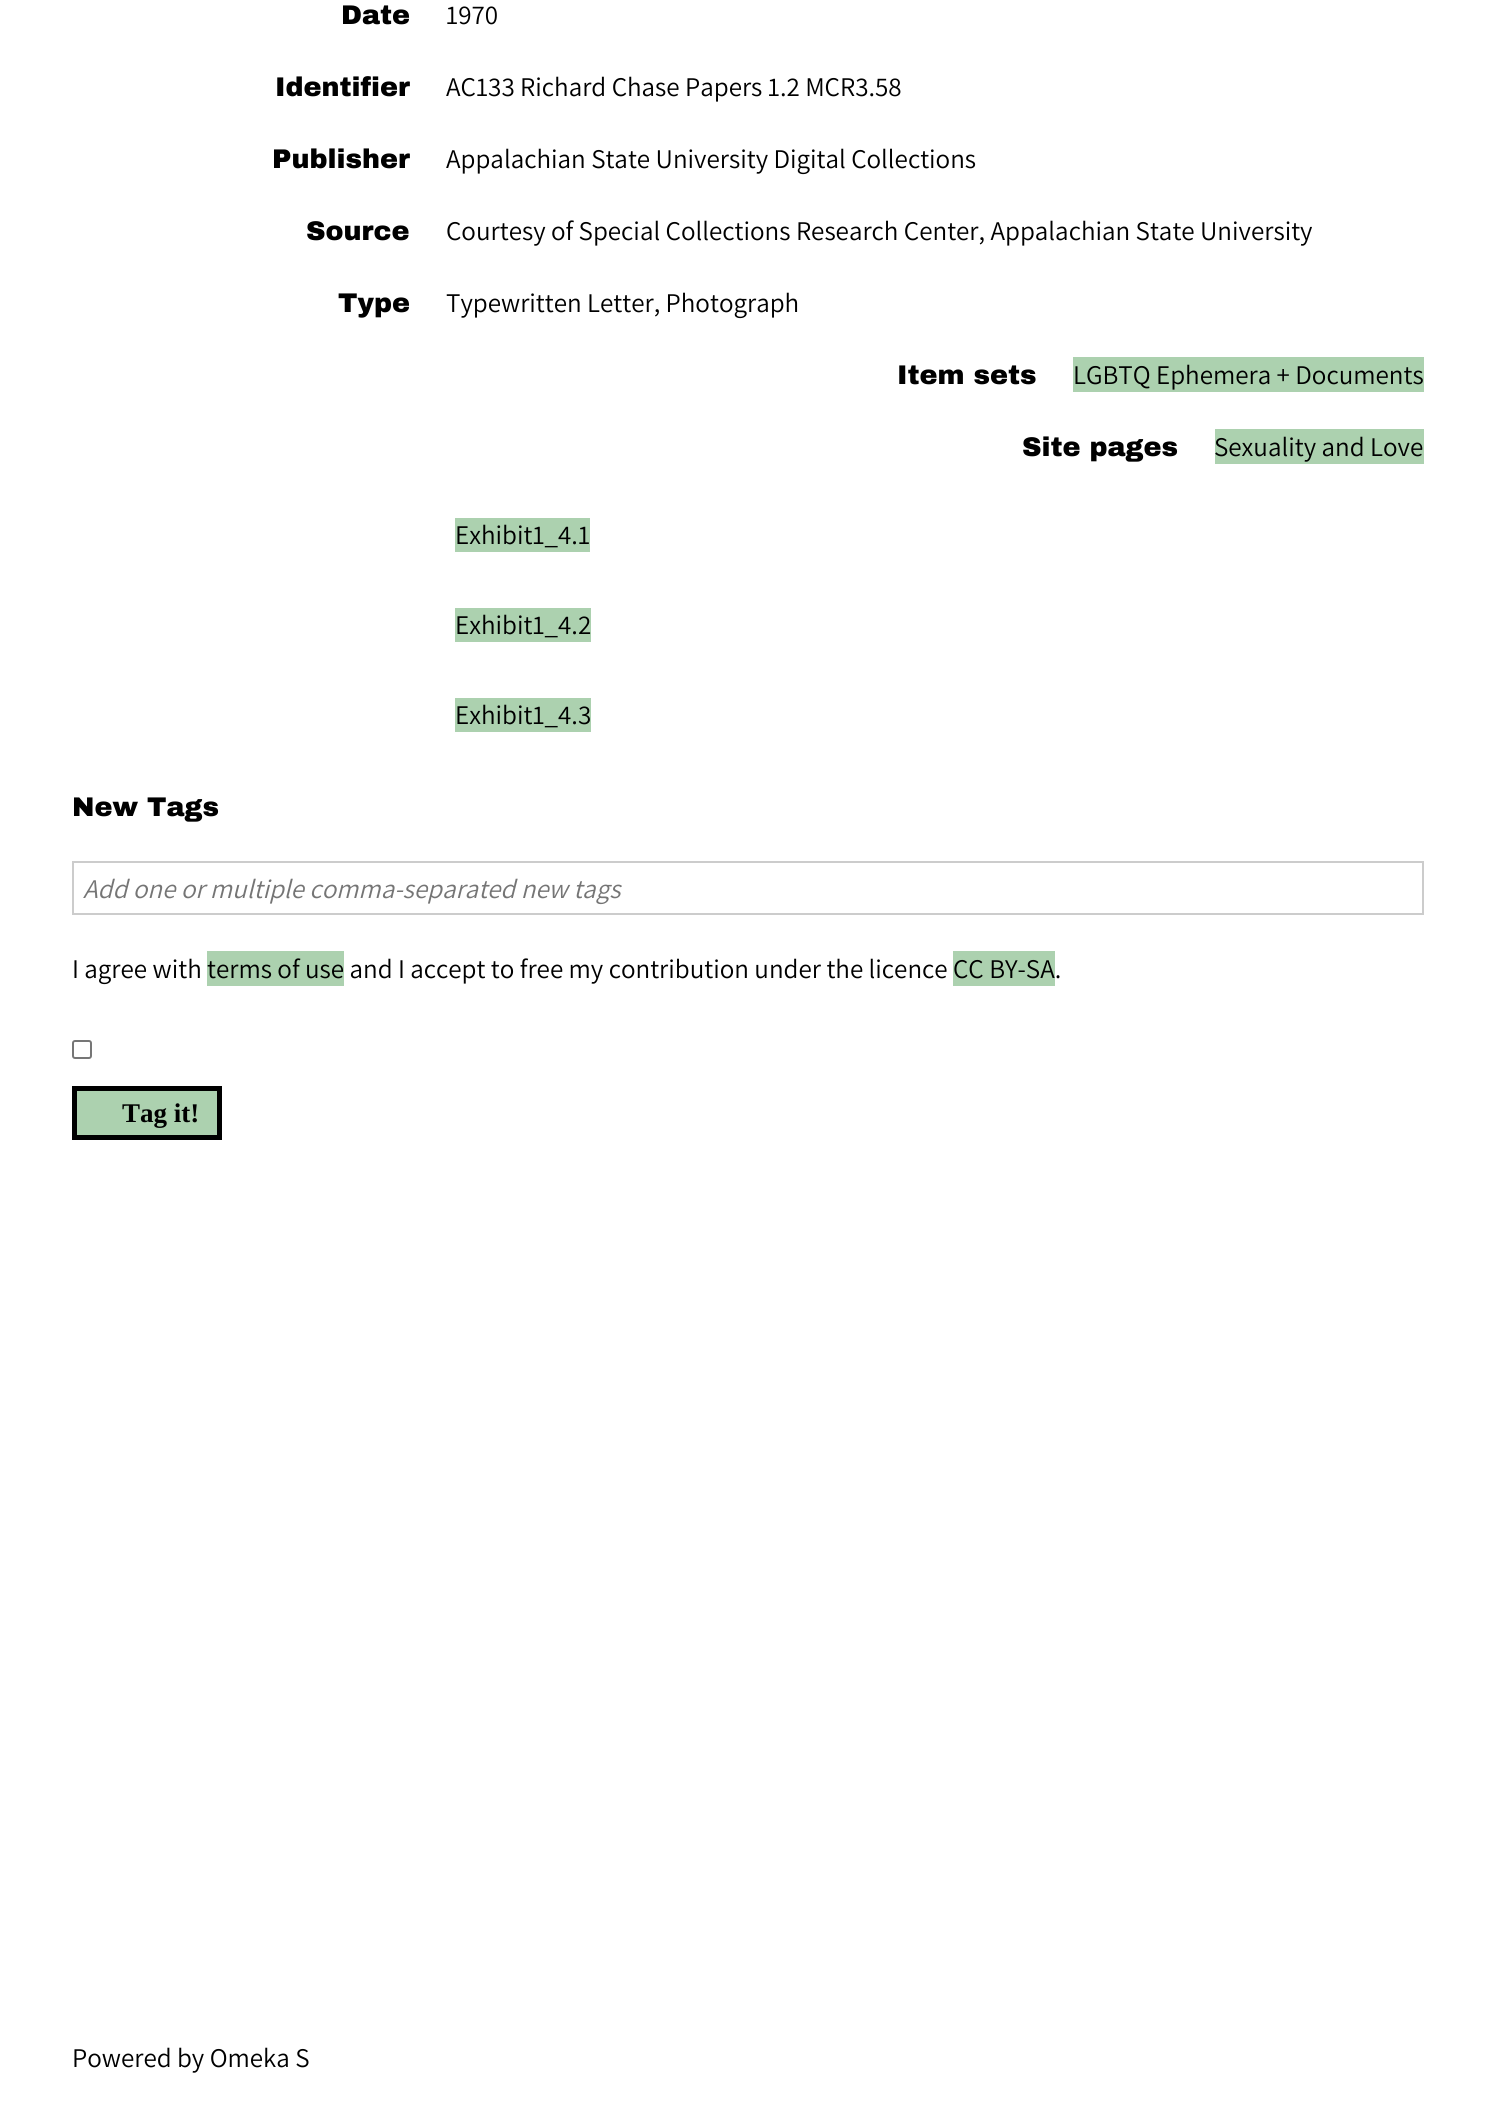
#include <cairo.h>
#include <math.h>
#include <stddef.h>


static void set_color(cairo_t *cr, unsigned color) {
    cairo_set_source_rgb(cr, (color >> 16) / 255.0, (color >> 8 & 255) / 255.0, (color & 255) / 255.0);
}

static void draw_text(cairo_t *cr, double x, double y, const char *s, const char *family, double size, int italic, int bold, unsigned color) {
    cairo_select_font_face(cr, family, italic ? CAIRO_FONT_SLANT_ITALIC : CAIRO_FONT_SLANT_NORMAL,
        bold ? CAIRO_FONT_WEIGHT_BOLD : CAIRO_FONT_WEIGHT_NORMAL);
    cairo_set_font_size(cr, size);
    set_color(cr, color);
    cairo_move_to(cr, x, y);
    cairo_show_text(cr, s);
}

static void fill_rect(cairo_t *cr, double x, double y, double w, double h, unsigned color) {
    set_color(cr, color);
    cairo_rectangle(cr, x, y, w, h);
    cairo_fill(cr);
}

static void rounded_rect(cairo_t *cr, double x, double y, double w, double h, double r) {
    cairo_new_sub_path(cr);
    cairo_arc(cr, x + w - r, y + h - r, r, 0, M_PI / 2);
    cairo_arc(cr, x + r, y + h - r, r, M_PI / 2, M_PI);
    cairo_arc(cr, x + r, y + r, r, M_PI, 1.5 * M_PI);
    cairo_arc(cr, x + w - r, y + r, r, 1.5 * M_PI, 2 * M_PI);
    cairo_close_path(cr);
}

int main(void) {
    cairo_surface_t *surface = cairo_image_surface_create(CAIRO_FORMAT_RGB24, 1495, 2112);
    cairo_t *cr = cairo_create(surface);
    cairo_font_options_t *options = cairo_font_options_create();
    cairo_font_options_set_hint_metrics(options, CAIRO_HINT_METRICS_OFF);
    cairo_font_options_set_hint_style(options, CAIRO_HINT_STYLE_NONE);
    cairo_set_font_options(cr, options);
    cairo_set_miter_limit(cr, 4);
    set_color(cr, 0xFFFFFF);
    cairo_paint(cr);
    draw_text(cr, 341, 24, "Date", "Archivo Black Black", 27, 0, 0, 0x000000);
    draw_text(cr, 446, 24, "1970", "Assistant", 27, 0, 0, 0x000000);
    draw_text(cr, 275, 96, "Identifier", "Archivo Black Black", 27, 0, 0, 0x000000);
    draw_text(cr, 446, 96, "AC133 Richard Chase Papers 1.2 MCR3.58", "Assistant", 27, 0, 0, 0x000000);
    draw_text(cr, 272, 168, "Publisher", "Archivo Black Black", 27, 0, 0, 0x000000);
    draw_text(cr, 446, 168, "Appalachian State University Digital Collections", "Assistant", 27, 0, 0, 0x000000);
    draw_text(cr, 306, 240, "Source", "Archivo Black Black", 27, 0, 0, 0x000000);
    draw_text(cr, 446, 240, "Courtesy of Special Collections Research Center, Appalachian State University", "Assistant", 27, 0, 0, 0x000000);
    draw_text(cr, 338, 312, "Type", "Archivo Black Black", 27, 0, 0, 0x000000);
    draw_text(cr, 446, 312, "Typewritten Letter, Photograph", "Assistant", 27, 0, 0, 0x000000);
    draw_text(cr, 897, 384, "Item sets", "Archivo Black Black", 27, 0, 0, 0x000000);
    fill_rect(cr, 1073, 357, 351, 35, 0xACD1AF);
    draw_text(cr, 1073, 384, "LGBTQ Ephemera + Documents", "Assistant", 27, 0, 0, 0x000000);
    draw_text(cr, 1022, 456, "Site pages", "Archivo Black Black", 27, 0, 0, 0x000000);
    fill_rect(cr, 1215, 429, 209, 35, 0xACD1AF);
    draw_text(cr, 1214, 456, "Sexuality and Love", "Assistant", 27, 0, 0, 0x000000);
    fill_rect(cr, 455, 518, 135, 34, 0xACD1AF);
    draw_text(cr, 455, 544, "Exhibit1_4.1", "Assistant", 27, 0, 0, 0x000000);
    fill_rect(cr, 455, 608, 136, 34, 0xACD1AF);
    draw_text(cr, 455, 634, "Exhibit1_4.2", "Assistant", 27, 0, 0, 0x000000);
    fill_rect(cr, 455, 698, 136, 34, 0xACD1AF);
    draw_text(cr, 455, 724, "Exhibit1_4.3", "Assistant", 27, 0, 0, 0x000000);
    draw_text(cr, 72, 816, "New Tags", "Archivo Black Black", 27, 0, 0, 0x000000);
    cairo_rectangle(cr, 73, 862, 1350, 52);
    set_color(cr, 0xCCCCCC);
    cairo_stroke(cr);
    draw_text(cr, 83, 898, "Add one or multiple comma-separated new tags", "Assistant", 27, 1, 0, 0x757575);
    draw_text(cr, 72, 978, "I agree with", "Assistant", 27, 0, 0, 0x000000);
    fill_rect(cr, 207, 951, 137, 35, 0xACD1AF);
    draw_text(cr, 207, 978, "terms of use and I accept to free my contribution under the licence", "Assistant", 27, 0, 0, 0x000000);
    fill_rect(cr, 953, 951, 102, 35, 0xACD1AF);
    draw_text(cr, 953, 978, "CC BY-SA.", "Assistant", 27, 0, 0, 0x000000);
    rounded_rect(cr, 73, 1041, 18, 17, 2);
    set_color(cr, 0x767676);
    cairo_stroke(cr);
    set_color(cr, 0xACD1AF);
    cairo_rectangle(cr, 74.5, 1088.5, 145, 49);
    cairo_fill_preserve(cr);
    set_color(cr, 0x000000);
    cairo_set_line_width(cr, 5);
    cairo_stroke(cr);
    draw_text(cr, 122, 1122, "Tag it!", "Liberation Serif", 27, 0, 1, 0x000000);
    draw_text(cr, 72, 2067, "Powered by Omeka S", "Assistant", 27, 0, 0, 0x000000);
    cairo_surface_write_to_png(surface, "output.png");
    cairo_font_options_destroy(options);
    cairo_destroy(cr);
    cairo_surface_destroy(surface);
    return 0;
}
